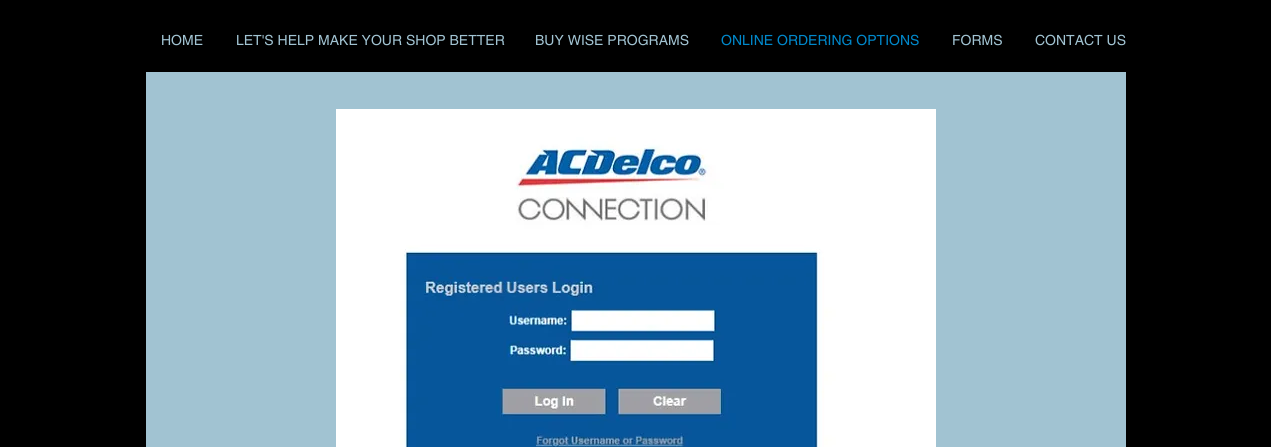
#include <cairo.h>
#include <math.h>
#include <stddef.h>


static void set_color(cairo_t *cr, unsigned color) {
    cairo_set_source_rgb(cr, (color >> 16) / 255.0, (color >> 8 & 255) / 255.0, (color & 255) / 255.0);
}

static void draw_text(cairo_t *cr, double x, double y, const char *s, const char *family, double size, int italic, int bold, unsigned color) {
    cairo_select_font_face(cr, family, italic ? CAIRO_FONT_SLANT_ITALIC : CAIRO_FONT_SLANT_NORMAL,
        bold ? CAIRO_FONT_WEIGHT_BOLD : CAIRO_FONT_WEIGHT_NORMAL);
    cairo_set_font_size(cr, size);
    set_color(cr, color);
    cairo_move_to(cr, x, y);
    cairo_show_text(cr, s);
}

static void fill_rect(cairo_t *cr, double x, double y, double w, double h, unsigned color) {
    set_color(cr, color);
    cairo_rectangle(cr, x, y, w, h);
    cairo_fill(cr);
}

static void draw_image(cairo_t *cr, const char *path, double x, double y, double w, double h) {
    cairo_surface_t *image = cairo_image_surface_create_from_png(path);
    cairo_save(cr);
    cairo_set_source_surface(cr, image, x, y);
    cairo_rectangle(cr, x, y, w, h);
    cairo_fill(cr);
    cairo_restore(cr);
    cairo_surface_destroy(image);
}

int main(void) {
    cairo_surface_t *surface = cairo_image_surface_create(CAIRO_FORMAT_RGB24, 1271, 447);
    cairo_t *cr = cairo_create(surface);
    cairo_font_options_t *options = cairo_font_options_create();
    cairo_font_options_set_hint_metrics(options, CAIRO_HINT_METRICS_OFF);
    cairo_font_options_set_hint_style(options, CAIRO_HINT_STYLE_NONE);
    cairo_set_font_options(cr, options);
    cairo_set_miter_limit(cr, 4);
    set_color(cr, 0x000000);
    cairo_paint(cr);
    draw_text(cr, 161, 45, "HOME", "helvetica", 14, 0, 0, 0xA1C3D2);
    draw_text(cr, 236, 45, "LET'S HELP MAKE YOUR SHOP BETTER", "helvetica", 14, 0, 0, 0xA1C3D2);
    draw_text(cr, 535, 45, "BUY WISE PROGRAMS", "helvetica", 14, 0, 0, 0xA1C3D2);
    draw_text(cr, 721, 45, "ONLINE ORDERING OPTIONS", "helvetica", 14, 0, 0, 0x0088CB);
    draw_text(cr, 952, 45, "FORMS", "helvetica", 14, 0, 0, 0xA1C3D2);
    draw_text(cr, 1035, 45, "CONTACT US", "helvetica", 14, 0, 0, 0xA1C3D2);
    fill_rect(cr, 146, 72, 980, 375, 0xA1C3D2);
    draw_image(cr, "assets/img1.png", 336, 109, 600, 338);
    cairo_surface_write_to_png(surface, "output.png");
    cairo_font_options_destroy(options);
    cairo_destroy(cr);
    cairo_surface_destroy(surface);
    return 0;
}
